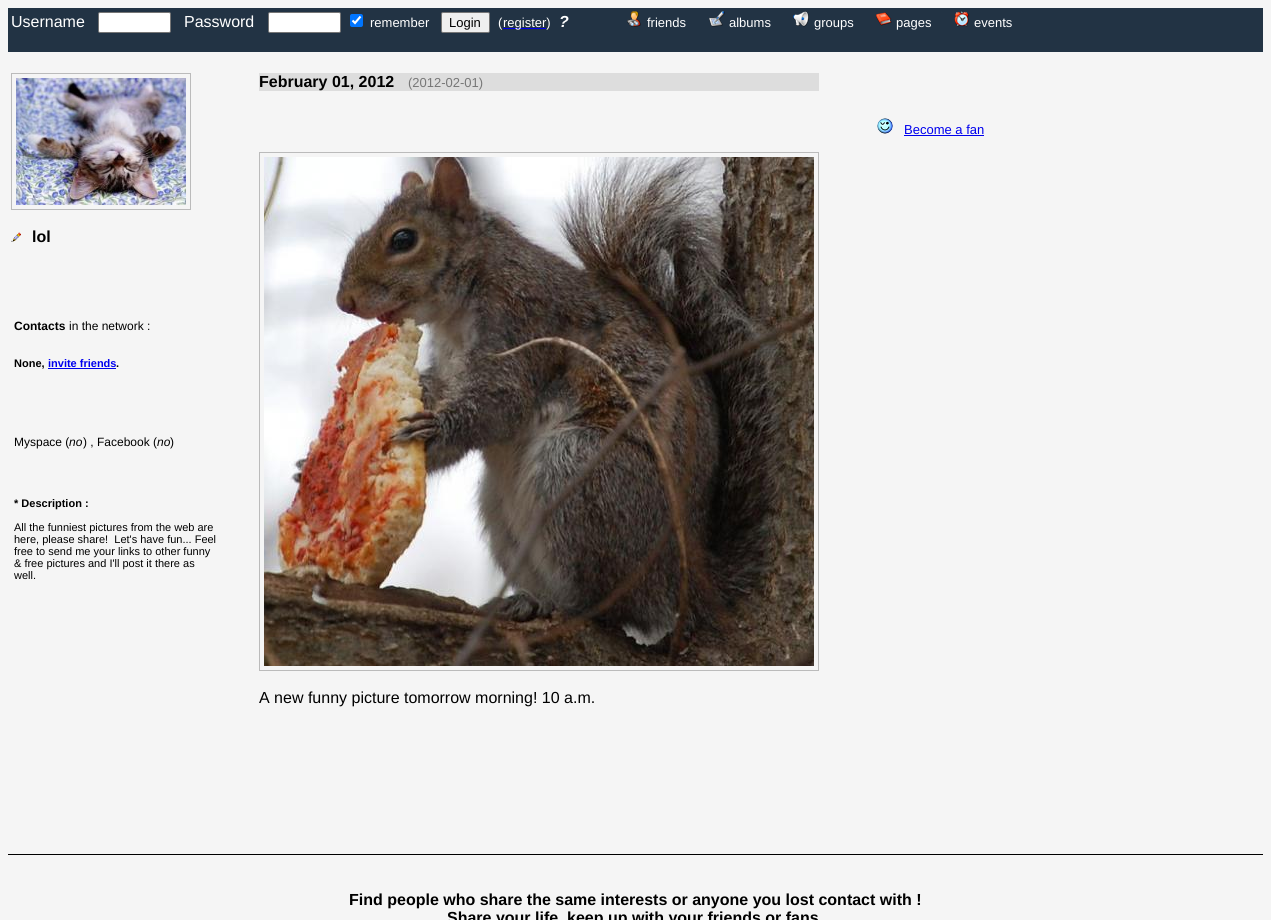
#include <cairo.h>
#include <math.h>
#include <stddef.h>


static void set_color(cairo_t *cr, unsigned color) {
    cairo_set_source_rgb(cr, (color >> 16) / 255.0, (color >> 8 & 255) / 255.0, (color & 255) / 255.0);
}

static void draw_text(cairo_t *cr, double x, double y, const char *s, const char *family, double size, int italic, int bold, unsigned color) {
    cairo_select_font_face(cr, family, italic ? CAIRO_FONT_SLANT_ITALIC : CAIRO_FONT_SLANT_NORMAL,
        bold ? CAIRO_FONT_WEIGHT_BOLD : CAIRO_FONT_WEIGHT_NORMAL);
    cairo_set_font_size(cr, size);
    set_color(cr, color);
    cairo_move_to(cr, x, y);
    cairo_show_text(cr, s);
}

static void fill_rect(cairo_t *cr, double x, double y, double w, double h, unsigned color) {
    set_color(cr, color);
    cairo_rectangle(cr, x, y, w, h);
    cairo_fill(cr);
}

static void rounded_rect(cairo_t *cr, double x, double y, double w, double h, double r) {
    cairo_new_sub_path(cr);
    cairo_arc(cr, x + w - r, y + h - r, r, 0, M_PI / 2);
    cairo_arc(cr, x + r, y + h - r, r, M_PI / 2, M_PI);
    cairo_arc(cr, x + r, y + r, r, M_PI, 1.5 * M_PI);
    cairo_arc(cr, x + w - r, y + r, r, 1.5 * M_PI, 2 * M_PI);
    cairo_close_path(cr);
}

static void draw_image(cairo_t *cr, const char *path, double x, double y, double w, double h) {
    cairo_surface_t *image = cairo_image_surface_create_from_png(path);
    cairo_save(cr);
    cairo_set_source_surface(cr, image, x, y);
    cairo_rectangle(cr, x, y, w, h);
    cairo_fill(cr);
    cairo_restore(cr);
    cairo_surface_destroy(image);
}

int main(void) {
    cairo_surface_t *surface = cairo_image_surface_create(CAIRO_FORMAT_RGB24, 1271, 920);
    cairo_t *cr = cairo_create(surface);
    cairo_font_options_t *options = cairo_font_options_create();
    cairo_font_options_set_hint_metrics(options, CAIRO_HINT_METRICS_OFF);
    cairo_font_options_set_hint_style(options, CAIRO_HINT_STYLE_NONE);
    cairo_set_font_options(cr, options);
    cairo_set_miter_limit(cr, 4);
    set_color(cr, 0xF5F5F5);
    cairo_paint(cr);
    fill_rect(cr, 8, 8, 1255, 44, 0x223344);
    draw_text(cr, 11, 27, "Username", "Liberation Sans", 16, 0, 0, 0xFFFFFF);
    rounded_rect(cr, 98.5, 12.5, 72, 20, 1.5);
    cairo_fill_preserve(cr);
    set_color(cr, 0x767676);
    cairo_set_line_width(cr, 1);
    cairo_stroke(cr);
    draw_text(cr, 184, 27, "Password", "Liberation Sans", 16, 0, 0, 0xFFFFFF);
    rounded_rect(cr, 268.5, 12.5, 72, 20, 1.5);
    cairo_fill_preserve(cr);
    set_color(cr, 0x767676);
    cairo_stroke(cr);
    set_color(cr, 0x0075FF);
    rounded_rect(cr, 350, 14, 13, 13, 2);
    cairo_fill(cr);
    cairo_new_path(cr);
    cairo_move_to(cr, 352.5, 20.5);
    cairo_line_to(cr, 355, 23);
    cairo_line_to(cr, 360.5, 16.5);
    set_color(cr, 0xFFFFFF);
    cairo_set_line_width(cr, 2.1);
    cairo_stroke(cr);
    draw_text(cr, 370, 27, "remember", "Liberation Sans", 13, 0, 0, 0xFFFFFF);
    set_color(cr, 0xEFEFEF);
    rounded_rect(cr, 441.5, 12.5, 48, 20, 1.5);
    cairo_fill_preserve(cr);
    set_color(cr, 0x767676);
    cairo_set_line_width(cr, 1);
    cairo_stroke(cr);
    draw_text(cr, 449, 27, "Login", "Liberation Sans", 13, 0, 0, 0x000000);
    draw_text(cr, 498, 27, "(", "Liberation Sans", 13, 0, 0, 0xFFFFFF);
    fill_rect(cr, 503, 28, 43, 1, 0x0000EE);
    draw_text(cr, 503, 27, "register)", "Liberation Sans", 13, 0, 0, 0xFFFFFF);
    draw_text(cr, 559, 27, "?", "Liberation Sans", 16, 1, 1, 0xFFFFFF);
    draw_image(cr, "assets/img1.png", 627, 11, 14, 16);
    draw_text(cr, 647, 27, "friends", "Liberation Sans", 13, 0, 0, 0xFFFFFF);
    draw_image(cr, "assets/img2.png", 709, 11, 16, 16);
    draw_text(cr, 729, 27, "albums", "Liberation Sans", 13, 0, 0, 0xFFFFFF);
    draw_image(cr, "assets/img3.png", 793, 11, 16, 16);
    draw_text(cr, 814, 27, "groups", "Liberation Sans", 13, 0, 0, 0xFFFFFF);
    draw_image(cr, "assets/img4.png", 876, 12, 16, 14);
    draw_text(cr, 896, 27, "pages", "Liberation Sans", 13, 0, 0, 0xFFFFFF);
    draw_image(cr, "assets/img5.png", 954, 11, 15, 16);
    draw_text(cr, 974, 27, "events", "Liberation Sans", 13, 0, 0, 0xFFFFFF);
    fill_rect(cr, 259, 73, 560, 18, 0xDDDDDD);
    draw_text(cr, 259, 87, "February 01, 2012", "Liberation Sans", 16, 0, 1, 0x000000);
    draw_text(cr, 408, 87, "(2012-02-01)", "Liberation Sans", 13, 0, 0, 0x777777);
    cairo_rectangle(cr, 259.5, 152.5, 559, 518);
    set_color(cr, 0xBBBBBB);
    cairo_stroke(cr);
    draw_image(cr, "assets/img6.png", 264, 157, 550, 509);
    draw_text(cr, 259, 703, "A new funny picture tomorrow morning! 10 a.m.", "Liberation Sans", 16, 0, 0, 0x000000);
    draw_image(cr, "assets/img7.png", 877, 118, 16, 16);
    draw_text(cr, 904, 134, "Become a fan", "Liberation Sans", 13, 0, 0, 0x0000EE);
    fill_rect(cr, 904, 135, 80, 1, 0x0000EE);
    cairo_rectangle(cr, 11.5, 73.5, 179, 136);
    set_color(cr, 0xBBBBBB);
    cairo_stroke(cr);
    draw_image(cr, "assets/img8.png", 16, 78, 170, 127);
    draw_image(cr, "assets/img9.png", 11, 232, 10, 10);
    draw_text(cr, 32, 242, "lol", "Liberation Sans", 16, 0, 1, 0x000000);
    draw_text(cr, 14, 330, "Contacts", "Liberation Sans", 12, 0, 1, 0x000000);
    draw_text(cr, 69, 330, "in the network :", "Liberation Sans", 12, 0, 0, 0x000000);
    draw_text(cr, 14, 367, "None,", "Liberation Sans", 11, 0, 1, 0x000000);
    draw_text(cr, 48, 367, "invite friends", "Liberation Sans", 11, 0, 1, 0x0000EE);
    draw_text(cr, 116, 367, ".", "Liberation Sans", 11, 0, 1, 0x000000);
    fill_rect(cr, 48, 368, 68, 1, 0x0000EE);
    draw_text(cr, 14, 446, "Myspace (", "Liberation Sans", 12, 0, 0, 0x000000);
    draw_text(cr, 69, 446, "no", "Liberation Sans", 12, 1, 0, 0x000000);
    draw_text(cr, 83, 446, ") , Facebook (", "Liberation Sans", 12, 0, 0, 0x000000);
    draw_text(cr, 157, 446, "no", "Liberation Sans", 12, 1, 0, 0x000000);
    draw_text(cr, 170, 446, ")", "Liberation Sans", 12, 0, 0, 0x000000);
    draw_text(cr, 14, 507, "* Description :", "Liberation Sans", 11, 0, 1, 0x000000);
    draw_text(cr, 14, 531, "All the funniest pictures from the web are", "Liberation Sans", 11, 0, 0, 0x000000);
    draw_text(cr, 14, 543, "here, please share!  Let's have fun... Feel", "Liberation Sans", 11, 0, 0, 0x000000);
    draw_text(cr, 14, 555, "free to send me your links to other funny", "Liberation Sans", 11, 0, 0, 0x000000);
    draw_text(cr, 14, 567, "& free pictures and I'll post it there as", "Liberation Sans", 11, 0, 0, 0x000000);
    draw_text(cr, 14, 579, "well.", "Liberation Sans", 11, 0, 0, 0x000000);
    fill_rect(cr, 8, 854, 1255, 1, 0x000000);
    draw_text(cr, 349, 905, "Find people who share the same interests or anyone you lost contact with !", "Liberation Sans", 16, 0, 1, 0x000000);
    draw_text(cr, 447, 923, "Share your life, keep up with your friends or fans", "Liberation Sans", 16, 0, 1, 0x000000);
    cairo_surface_write_to_png(surface, "output.png");
    cairo_font_options_destroy(options);
    cairo_destroy(cr);
    cairo_surface_destroy(surface);
    return 0;
}
